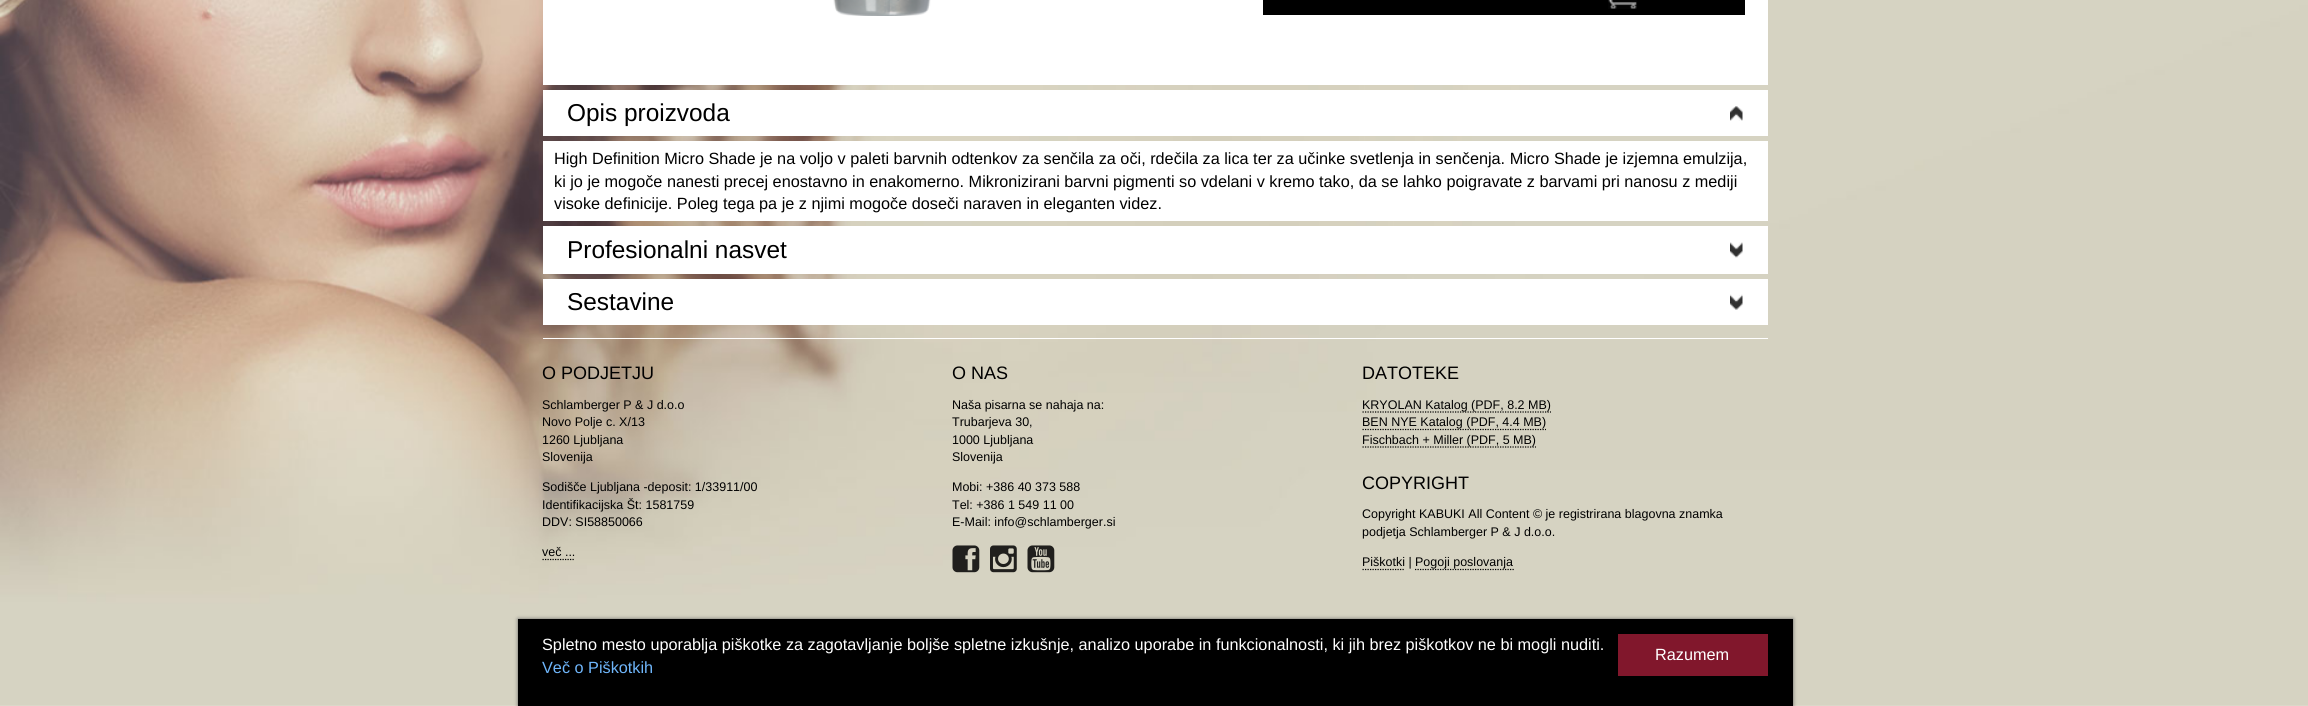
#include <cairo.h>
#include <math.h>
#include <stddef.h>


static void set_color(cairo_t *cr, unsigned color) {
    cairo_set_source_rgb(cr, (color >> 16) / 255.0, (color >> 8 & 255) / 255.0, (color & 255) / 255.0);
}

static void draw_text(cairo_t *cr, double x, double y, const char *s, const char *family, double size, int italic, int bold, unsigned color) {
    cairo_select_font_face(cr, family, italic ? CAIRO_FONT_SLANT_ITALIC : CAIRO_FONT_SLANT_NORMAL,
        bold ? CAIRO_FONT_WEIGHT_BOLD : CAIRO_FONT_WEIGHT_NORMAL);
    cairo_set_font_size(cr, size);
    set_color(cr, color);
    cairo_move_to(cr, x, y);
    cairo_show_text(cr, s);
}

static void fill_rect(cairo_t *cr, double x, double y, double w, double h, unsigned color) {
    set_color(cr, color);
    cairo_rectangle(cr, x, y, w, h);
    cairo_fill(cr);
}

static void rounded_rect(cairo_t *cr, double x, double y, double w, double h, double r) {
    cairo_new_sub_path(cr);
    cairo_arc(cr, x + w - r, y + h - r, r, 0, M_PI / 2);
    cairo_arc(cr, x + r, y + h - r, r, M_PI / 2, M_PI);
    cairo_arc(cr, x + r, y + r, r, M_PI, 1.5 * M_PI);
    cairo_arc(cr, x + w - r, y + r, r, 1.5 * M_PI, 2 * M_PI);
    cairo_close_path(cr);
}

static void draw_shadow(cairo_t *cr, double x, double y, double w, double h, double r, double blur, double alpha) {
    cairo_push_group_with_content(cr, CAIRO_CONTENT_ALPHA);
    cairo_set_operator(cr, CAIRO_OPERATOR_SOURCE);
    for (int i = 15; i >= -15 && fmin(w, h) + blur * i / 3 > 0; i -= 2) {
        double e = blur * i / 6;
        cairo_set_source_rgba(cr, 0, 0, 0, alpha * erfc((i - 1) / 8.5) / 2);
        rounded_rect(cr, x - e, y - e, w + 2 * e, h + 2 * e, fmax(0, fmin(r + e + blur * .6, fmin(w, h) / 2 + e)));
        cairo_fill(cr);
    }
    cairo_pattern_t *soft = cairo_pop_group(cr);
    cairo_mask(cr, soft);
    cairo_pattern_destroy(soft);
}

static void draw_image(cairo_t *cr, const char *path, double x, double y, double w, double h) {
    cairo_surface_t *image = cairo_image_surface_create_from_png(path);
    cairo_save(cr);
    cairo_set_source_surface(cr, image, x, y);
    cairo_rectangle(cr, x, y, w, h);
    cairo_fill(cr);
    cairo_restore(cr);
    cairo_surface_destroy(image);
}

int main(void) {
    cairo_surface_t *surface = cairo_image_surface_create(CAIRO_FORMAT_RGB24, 2308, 706);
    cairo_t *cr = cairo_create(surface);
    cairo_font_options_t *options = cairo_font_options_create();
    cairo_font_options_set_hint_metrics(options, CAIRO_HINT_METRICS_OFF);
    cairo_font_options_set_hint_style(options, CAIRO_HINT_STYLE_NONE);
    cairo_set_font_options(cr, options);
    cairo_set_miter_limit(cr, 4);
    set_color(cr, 0xFFFFFF);
    cairo_paint(cr);
    draw_image(cr, "assets/img1.png", 0, 0, 2308, 706);
    fill_rect(cr, 543, 0, 1225, 85, 0xFFFFFF);
    draw_image(cr, "assets/img2.png", 833, 0, 98, 16);
    fill_rect(cr, 1263, 0, 482, 15, 0x000000);
    draw_image(cr, "assets/img3.png", 1608, 0, 29, 9);
    fill_rect(cr, 543, 90, 1225, 46, 0xFFFFFF);
    draw_image(cr, "assets/img4.png", 1730, 106, 13, 15);
    draw_text(cr, 567, 121, "Opis proizvoda", "Liberation Sans", 24.4, 0, 0, 0x000000);
    fill_rect(cr, 543, 141, 1225, 80, 0xFFFFFF);
    draw_text(cr, 554, 164, "High Definition Micro Shade je na voljo v paleti barvnih odtenkov za senčila za oči, rdečila za lica ter za učinke svetlenja in senčenja. Micro Shade je izjemna emulzija,", "Liberation Sans", 16.25, 0, 0, 0x000000);
    draw_text(cr, 554, 187, "ki jo je mogoče nanesti precej enostavno in enakomerno. Mikronizirani barvni pigmenti so vdelani v kremo tako, da se lahko poigravate z barvami pri nanosu z mediji", "Liberation Sans", 16.25, 0, 0, 0x000000);
    draw_text(cr, 554, 209, "visoke definicije. Poleg tega pa je z njimi mogoče doseči naraven in eleganten videz.", "Liberation Sans", 16.25, 0, 0, 0x000000);
    fill_rect(cr, 543, 226, 1225, 48, 0xFFFFFF);
    draw_image(cr, "assets/img5.png", 1730, 242, 13, 16);
    draw_text(cr, 567, 258, "Profesionalni nasvet", "Liberation Sans", 24.4, 0, 0, 0x000000);
    fill_rect(cr, 543, 279, 1225, 46, 0xFFFFFF);
    draw_image(cr, "assets/img6.png", 1730, 294, 13, 16);
    draw_text(cr, 567, 310, "Sestavine", "Liberation Sans", 24.4, 0, 0, 0x000000);
    fill_rect(cr, 543, 338, 1225, 1, 0xFFFFFF);
    draw_text(cr, 542, 379, "O PODJETJU", "Liberation Sans", 18, 0, 0, 0x000000);
    draw_text(cr, 542, 409, "Schlamberger P & J d.o.o", "Liberation Sans", 12.5, 0, 0, 0x000000);
    draw_text(cr, 542, 426, "Novo Polje c. X/13", "Liberation Sans", 12.5, 0, 0, 0x000000);
    draw_text(cr, 542, 444, "1260 Ljubljana", "Liberation Sans", 12.5, 0, 0, 0x000000);
    draw_text(cr, 542, 461, "Slovenija", "Liberation Sans", 12.5, 0, 0, 0x000000);
    draw_text(cr, 542, 491, "Sodišče Ljubljana -deposit: 1/33911/00", "Liberation Sans", 12.5, 0, 0, 0x000000);
    draw_text(cr, 542, 509, "Identifikacijska Št: 1581759", "Liberation Sans", 12.5, 0, 0, 0x000000);
    draw_text(cr, 542, 526, "DDV: SI58850066", "Liberation Sans", 12.5, 0, 0, 0x000000);
    draw_text(cr, 542, 556, "več ...", "Liberation Sans", 12.5, 0, 0, 0x000000);
    cairo_new_path(cr);
    cairo_move_to(cr, 542.5, 559.5);
    cairo_line_to(cr, 575, 559.5);
    cairo_set_line_width(cr, 1.2);
    cairo_set_dash(cr, (double[]){1.25, 1.25}, 2, 0);
    cairo_stroke(cr);
    draw_text(cr, 952, 379, "O NAS", "Liberation Sans", 18, 0, 0, 0x000000);
    draw_text(cr, 952, 409, "Naša pisarna se nahaja na:", "Liberation Sans", 12.5, 0, 0, 0x000000);
    draw_text(cr, 952, 426, "Trubarjeva 30,", "Liberation Sans", 12.5, 0, 0, 0x000000);
    draw_text(cr, 952, 444, "1000 Ljubljana", "Liberation Sans", 12.5, 0, 0, 0x000000);
    draw_text(cr, 952, 461, "Slovenija", "Liberation Sans", 12.5, 0, 0, 0x000000);
    draw_text(cr, 952, 491, "Mobi: +386 40 373 588", "Liberation Sans", 12.5, 0, 0, 0x000000);
    draw_text(cr, 952, 509, "Tel: +386 1 549 11 00", "Liberation Sans", 12.5, 0, 0, 0x000000);
    draw_text(cr, 952, 526, "E-Mail: info@schlamberger.si", "Liberation Sans", 12.5, 0, 0, 0x000000);
    draw_image(cr, "assets/img7.png", 952, 545, 28, 28);
    draw_image(cr, "assets/img8.png", 990, 545, 27, 28);
    draw_image(cr, "assets/img9.png", 1027, 545, 28, 28);
    draw_text(cr, 1362, 379, "DATOTEKE", "Liberation Sans", 18, 0, 0, 0x000000);
    cairo_new_path(cr);
    cairo_move_to(cr, 1362.5, 412);
    cairo_line_to(cr, 1551, 412);
    cairo_stroke(cr);
    draw_text(cr, 1362, 409, "KRYOLAN Katalog (PDF, 8.2 MB)", "Liberation Sans", 12.5, 0, 0, 0x000000);
    cairo_new_path(cr);
    cairo_move_to(cr, 1362.5, 429.5);
    cairo_line_to(cr, 1546, 429.5);
    cairo_stroke(cr);
    draw_text(cr, 1362, 426, "BEN NYE Katalog (PDF, 4.4 MB)", "Liberation Sans", 12.5, 0, 0, 0x000000);
    cairo_new_path(cr);
    cairo_move_to(cr, 1362.5, 447);
    cairo_line_to(cr, 1536, 447);
    cairo_stroke(cr);
    draw_text(cr, 1362, 444, "Fischbach + Miller (PDF, 5 MB)", "Liberation Sans", 12.5, 0, 0, 0x000000);
    draw_text(cr, 1362, 489, "COPYRIGHT", "Liberation Sans", 18, 0, 0, 0x000000);
    draw_text(cr, 1362, 518, "Copyright KABUKI All Content © je registrirana blagovna znamka", "Liberation Sans", 12.5, 0, 0, 0x000000);
    draw_text(cr, 1362, 536, "podjetja Schlamberger P & J d.o.o.", "Liberation Sans", 12.5, 0, 0, 0x000000);
    cairo_new_path(cr);
    cairo_move_to(cr, 1362.5, 569.5);
    cairo_line_to(cr, 1405, 569.5);
    cairo_stroke(cr);
    draw_text(cr, 1362, 566, "Piškotki |", "Liberation Sans", 12.5, 0, 0, 0x000000);
    cairo_new_path(cr);
    cairo_move_to(cr, 1415, 569.5);
    cairo_line_to(cr, 1514, 569.5);
    cairo_stroke(cr);
    draw_text(cr, 1415, 566, "Pogoji poslovanja", "Liberation Sans", 12.5, 0, 0, 0x000000);
    set_color(cr, 0x666666);
    draw_shadow(cr, 518, 619, 1275, 87, 0, 2, 1);
    fill_rect(cr, 518, 619, 1275, 87, 0x000000);
    draw_text(cr, 542, 650, "Spletno mesto uporablja piškotke za zagotavljanje boljše spletne izkušnje, analizo uporabe in funkcionalnosti, ki jih brez piškotkov ne bi mogli nuditi.", "Liberation Sans", 16.25, 0, 0, 0xFFFFFF);
    draw_text(cr, 542, 673, "Več o Piškotkih", "Liberation Sans", 16.25, 0, 0, 0x6FB6FB);
    fill_rect(cr, 1618, 634, 150, 42, 0x81172C);
    draw_text(cr, 1655, 660, "Razumem", "Liberation Sans", 16.25, 0, 0, 0xFFFFFF);
    cairo_surface_write_to_png(surface, "output.png");
    cairo_font_options_destroy(options);
    cairo_destroy(cr);
    cairo_surface_destroy(surface);
    return 0;
}
